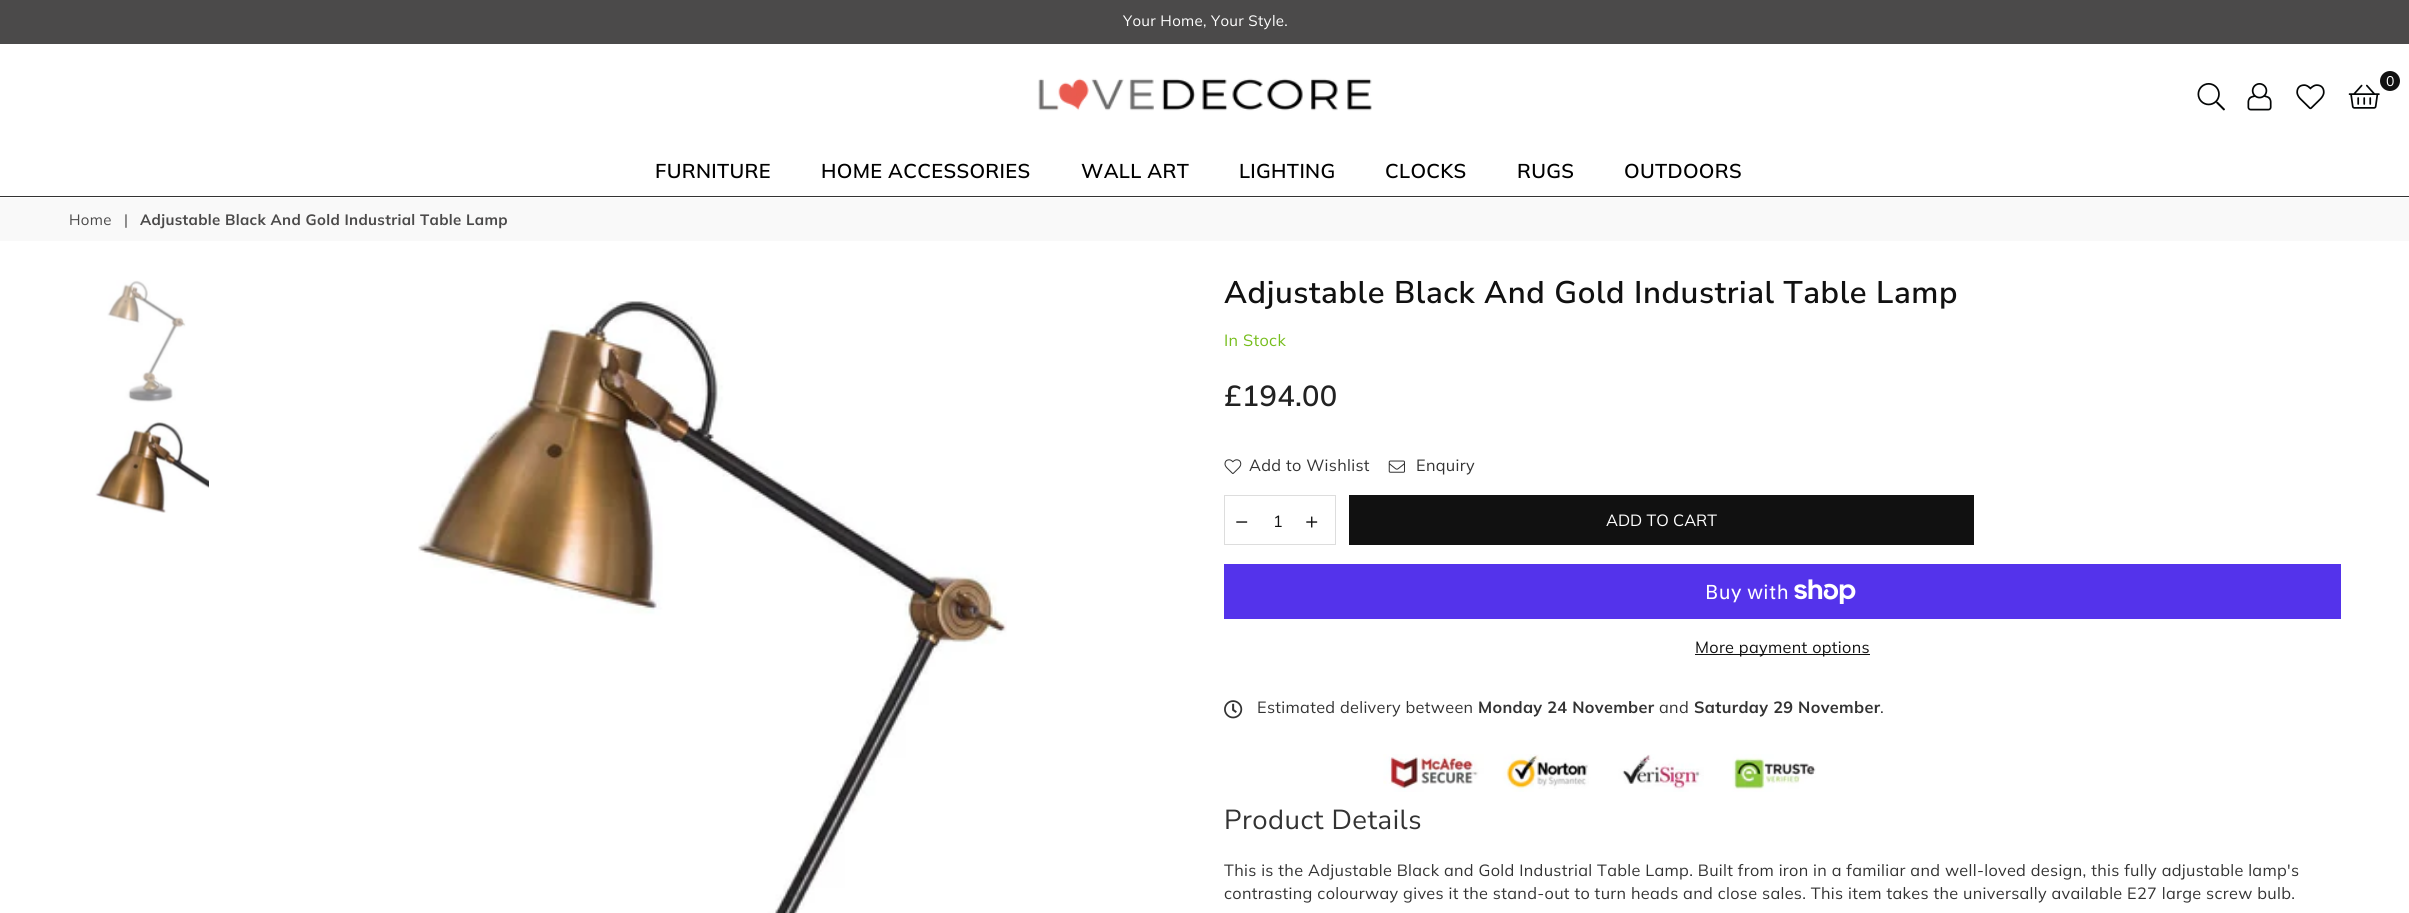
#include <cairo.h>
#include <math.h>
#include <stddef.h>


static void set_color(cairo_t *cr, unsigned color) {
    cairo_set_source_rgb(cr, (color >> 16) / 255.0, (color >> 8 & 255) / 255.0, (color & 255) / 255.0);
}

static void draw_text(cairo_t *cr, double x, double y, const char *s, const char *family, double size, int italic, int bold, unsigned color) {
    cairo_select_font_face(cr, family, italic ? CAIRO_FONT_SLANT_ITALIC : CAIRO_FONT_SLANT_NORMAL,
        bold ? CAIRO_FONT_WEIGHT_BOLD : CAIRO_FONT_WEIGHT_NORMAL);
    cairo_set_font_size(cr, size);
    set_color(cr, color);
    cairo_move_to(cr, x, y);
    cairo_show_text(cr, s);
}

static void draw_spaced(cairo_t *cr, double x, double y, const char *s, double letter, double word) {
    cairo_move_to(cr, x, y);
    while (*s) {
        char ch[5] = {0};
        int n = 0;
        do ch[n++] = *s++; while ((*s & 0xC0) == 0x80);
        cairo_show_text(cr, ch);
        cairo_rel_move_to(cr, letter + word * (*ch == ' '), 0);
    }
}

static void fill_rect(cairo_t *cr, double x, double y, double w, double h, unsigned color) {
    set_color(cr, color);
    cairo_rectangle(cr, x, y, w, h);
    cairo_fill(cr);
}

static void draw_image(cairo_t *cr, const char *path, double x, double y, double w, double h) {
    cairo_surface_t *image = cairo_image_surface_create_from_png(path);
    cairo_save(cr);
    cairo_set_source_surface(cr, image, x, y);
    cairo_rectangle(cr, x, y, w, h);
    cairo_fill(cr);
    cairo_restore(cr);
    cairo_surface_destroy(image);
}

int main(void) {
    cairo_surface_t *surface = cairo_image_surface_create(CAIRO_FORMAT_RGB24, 2409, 913);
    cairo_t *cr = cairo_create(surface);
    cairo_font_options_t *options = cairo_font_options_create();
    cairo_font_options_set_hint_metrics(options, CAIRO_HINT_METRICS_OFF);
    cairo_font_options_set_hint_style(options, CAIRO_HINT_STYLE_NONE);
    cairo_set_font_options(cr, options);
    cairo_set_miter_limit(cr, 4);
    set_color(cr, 0xFFFFFF);
    cairo_paint(cr);
    fill_rect(cr, 0, 0, 2409, 44, 0x4B4A4A);
    cairo_select_font_face(cr, "Muli", CAIRO_FONT_SLANT_NORMAL, CAIRO_FONT_WEIGHT_NORMAL);
    cairo_set_font_size(cr, 15);
    set_color(cr, 0xFFFFFF);
    draw_spaced(cr, 1123, 26, "Your Home, Your Style.", 0.33, 0);
    fill_rect(cr, 0, 196, 2409, 1, 0x333333);
    draw_image(cr, "assets/img1.png", 1038, 78, 334, 33);
    set_color(cr, 0x111111);
    cairo_arc(cr, 2390, 81, 10, 0, 2 * M_PI);
    cairo_fill(cr);
    cairo_set_font_size(cr, 14);
    set_color(cr, 0xFFFFFF);
    draw_spaced(cr, 2386, 86, "0", 0.33, 0);
    draw_image(cr, "assets/img2.png", 2348, 84, 32, 25);
    draw_image(cr, "assets/img3.png", 2197, 83, 28, 28);
    draw_image(cr, "assets/img4.png", 2247, 83, 25, 28);
    draw_image(cr, "assets/img5.png", 2296, 84, 29, 26);
    cairo_select_font_face(cr, "Muli SemiBold", CAIRO_FONT_SLANT_NORMAL, CAIRO_FONT_WEIGHT_NORMAL);
    cairo_set_font_size(cr, 20);
    set_color(cr, 0x000000);
    draw_spaced(cr, 655, 178, "FURNITURE", 0.33, 0);
    draw_spaced(cr, 821, 178, "HOME ACCESSORIES", 0.33, 0);
    draw_spaced(cr, 1081, 178, "WALL ART", 0.33, 0);
    draw_spaced(cr, 1239, 178, "LIGHTING", 0.33, 0);
    draw_spaced(cr, 1385, 178, "CLOCKS", 0.33, 0);
    draw_spaced(cr, 1517, 178, "RUGS", 0.33, 0);
    draw_spaced(cr, 1624, 178, "OUTDOORS", 0.33, 0);
    fill_rect(cr, 0, 198, 2409, 43, 0xF9F9F9);
    cairo_select_font_face(cr, "Muli", CAIRO_FONT_SLANT_NORMAL, CAIRO_FONT_WEIGHT_NORMAL);
    cairo_set_font_size(cr, 15);
    set_color(cr, 0x4B4A4A);
    draw_spaced(cr, 69, 225, "Home", 0.33, 0);
    draw_spaced(cr, 124, 225, "|", 0.33, 0);
    cairo_select_font_face(cr, "Muli", CAIRO_FONT_SLANT_NORMAL, CAIRO_FONT_WEIGHT_BOLD);
    draw_spaced(cr, 140, 225, "Adjustable Black And Gold Industrial Table Lamp", 0.33, 0);
    draw_image(cr, "assets/img6.png", 107, 280, 79, 123);
    draw_image(cr, "assets/img7.png", 95, 420, 114, 93);
    draw_image(cr, "assets/img8.png", 418, 301, 589, 612);
    cairo_select_font_face(cr, "Nunito Sans SemiBold", CAIRO_FONT_SLANT_NORMAL, CAIRO_FONT_WEIGHT_NORMAL);
    cairo_set_font_size(cr, 31.25);
    set_color(cr, 0x111111);
    draw_spaced(cr, 1224, 303, "Adjustable Black And Gold Industrial Table Lamp", 0.6, 0);
    cairo_select_font_face(cr, "Muli", CAIRO_FONT_SLANT_NORMAL, CAIRO_FONT_WEIGHT_NORMAL);
    cairo_set_font_size(cr, 16.25);
    set_color(cr, 0x76BD1C);
    draw_spaced(cr, 1224, 346, "In Stock", 0.33, 0);
    cairo_select_font_face(cr, "Muli SemiBold", CAIRO_FONT_SLANT_NORMAL, CAIRO_FONT_WEIGHT_NORMAL);
    cairo_set_font_size(cr, 29);
    set_color(cr, 0x222222);
    draw_spaced(cr, 1224, 406, "£194.00", 0.33, 0);
    draw_image(cr, "assets/img9.png", 1224, 459, 18, 15);
    cairo_select_font_face(cr, "Muli", CAIRO_FONT_SLANT_NORMAL, CAIRO_FONT_WEIGHT_NORMAL);
    cairo_set_font_size(cr, 16.25);
    set_color(cr, 0x333333);
    draw_spaced(cr, 1249, 471, "Add to Wishlist", 0.33, 0);
    draw_image(cr, "assets/img10.png", 1388, 460, 17, 13);
    draw_spaced(cr, 1416, 471, "Enquiry", 0.33, 0);
    cairo_rectangle(cr, 1224.5, 495.5, 111, 49);
    set_color(cr, 0xDDDDDD);
    cairo_set_line_width(cr, 1);
    cairo_stroke(cr);
    draw_image(cr, "assets/img11.png", 1236, 521, 12, 2);
    draw_text(cr, 1273, 527, "1", "Muli", 16.25, 0, 0, 0x111111);
    draw_image(cr, "assets/img12.png", 1306, 516, 12, 12);
    fill_rect(cr, 1349, 495, 625, 50, 0x111111);
    draw_text(cr, 1606, 526, "ADD TO CART", "Muli", 16.25, 0, 0, 0xFFFFFF);
    fill_rect(cr, 1224, 564, 1117, 55, 0x5433EB);
    cairo_select_font_face(cr, "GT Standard", CAIRO_FONT_SLANT_NORMAL, CAIRO_FONT_WEIGHT_NORMAL);
    cairo_set_font_size(cr, 20);
    set_color(cr, 0xFFFFFF);
    draw_spaced(cr, 1705, 599, "Buy with", 0.33, 0);
    draw_image(cr, "assets/img13.png", 1794, 579, 62, 25);
    fill_rect(cr, 1695, 654, 175, 1, 0x111111);
    cairo_select_font_face(cr, "Muli", CAIRO_FONT_SLANT_NORMAL, CAIRO_FONT_WEIGHT_NORMAL);
    cairo_set_font_size(cr, 16.25);
    draw_spaced(cr, 1695, 653, "More payment options", 0.33, 0);
    draw_image(cr, "assets/img14.png", 1224, 700, 19, 19);
    set_color(cr, 0x333333);
    draw_spaced(cr, 1257, 713, "Estimated delivery between", 0.33, 0);
    cairo_select_font_face(cr, "Muli", CAIRO_FONT_SLANT_NORMAL, CAIRO_FONT_WEIGHT_BOLD);
    draw_spaced(cr, 1478, 713, "Monday 24 November", 0.33, 0);
    cairo_select_font_face(cr, "Muli", CAIRO_FONT_SLANT_NORMAL, CAIRO_FONT_WEIGHT_NORMAL);
    draw_spaced(cr, 1659, 713, "and", 0.33, 0);
    cairo_select_font_face(cr, "Muli", CAIRO_FONT_SLANT_NORMAL, CAIRO_FONT_WEIGHT_BOLD);
    draw_spaced(cr, 1694, 713, "Saturday 29 November", 0.33, 0);
    cairo_select_font_face(cr, "Muli", CAIRO_FONT_SLANT_NORMAL, CAIRO_FONT_WEIGHT_NORMAL);
    draw_spaced(cr, 1880, 713, ".", 0.33, 0);
    draw_image(cr, "assets/img15.png", 1383, 754, 433, 38);
    cairo_select_font_face(cr, "Nunito Sans", CAIRO_FONT_SLANT_NORMAL, CAIRO_FONT_WEIGHT_NORMAL);
    cairo_set_font_size(cr, 27.5);
    draw_spaced(cr, 1224, 829, "Product Details", 0.5, 0);
    cairo_select_font_face(cr, "Muli", CAIRO_FONT_SLANT_NORMAL, CAIRO_FONT_WEIGHT_NORMAL);
    cairo_set_font_size(cr, 16.25);
    draw_spaced(cr, 1224, 876, "This is the Adjustable Black and Gold Industrial Table Lamp. Built from iron in a familiar and well-loved design, this fully adjustable lamp's", 0.33, 0);
    draw_spaced(cr, 1224, 899, "contrasting colourway gives it the stand-out to turn heads and close sales. This item takes the universally available E27 large screw bulb.", 0.33, 0);
    cairo_surface_write_to_png(surface, "output.png");
    cairo_font_options_destroy(options);
    cairo_destroy(cr);
    cairo_surface_destroy(surface);
    return 0;
}
